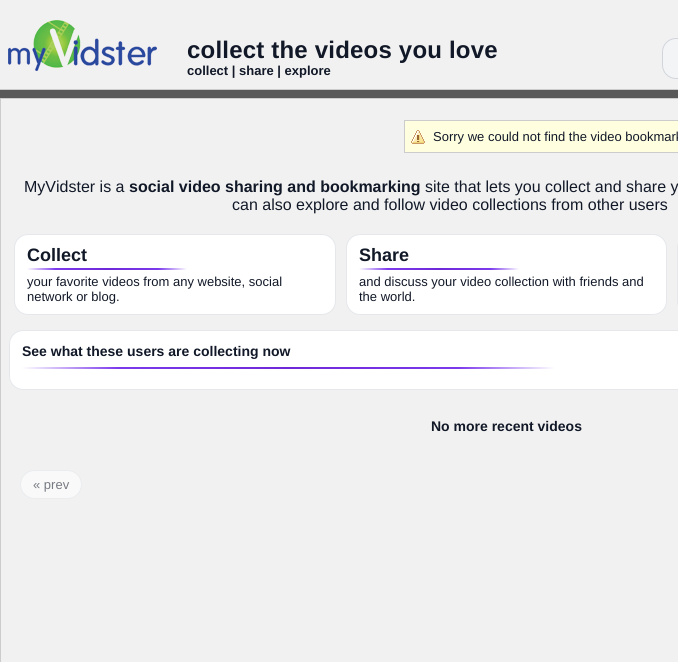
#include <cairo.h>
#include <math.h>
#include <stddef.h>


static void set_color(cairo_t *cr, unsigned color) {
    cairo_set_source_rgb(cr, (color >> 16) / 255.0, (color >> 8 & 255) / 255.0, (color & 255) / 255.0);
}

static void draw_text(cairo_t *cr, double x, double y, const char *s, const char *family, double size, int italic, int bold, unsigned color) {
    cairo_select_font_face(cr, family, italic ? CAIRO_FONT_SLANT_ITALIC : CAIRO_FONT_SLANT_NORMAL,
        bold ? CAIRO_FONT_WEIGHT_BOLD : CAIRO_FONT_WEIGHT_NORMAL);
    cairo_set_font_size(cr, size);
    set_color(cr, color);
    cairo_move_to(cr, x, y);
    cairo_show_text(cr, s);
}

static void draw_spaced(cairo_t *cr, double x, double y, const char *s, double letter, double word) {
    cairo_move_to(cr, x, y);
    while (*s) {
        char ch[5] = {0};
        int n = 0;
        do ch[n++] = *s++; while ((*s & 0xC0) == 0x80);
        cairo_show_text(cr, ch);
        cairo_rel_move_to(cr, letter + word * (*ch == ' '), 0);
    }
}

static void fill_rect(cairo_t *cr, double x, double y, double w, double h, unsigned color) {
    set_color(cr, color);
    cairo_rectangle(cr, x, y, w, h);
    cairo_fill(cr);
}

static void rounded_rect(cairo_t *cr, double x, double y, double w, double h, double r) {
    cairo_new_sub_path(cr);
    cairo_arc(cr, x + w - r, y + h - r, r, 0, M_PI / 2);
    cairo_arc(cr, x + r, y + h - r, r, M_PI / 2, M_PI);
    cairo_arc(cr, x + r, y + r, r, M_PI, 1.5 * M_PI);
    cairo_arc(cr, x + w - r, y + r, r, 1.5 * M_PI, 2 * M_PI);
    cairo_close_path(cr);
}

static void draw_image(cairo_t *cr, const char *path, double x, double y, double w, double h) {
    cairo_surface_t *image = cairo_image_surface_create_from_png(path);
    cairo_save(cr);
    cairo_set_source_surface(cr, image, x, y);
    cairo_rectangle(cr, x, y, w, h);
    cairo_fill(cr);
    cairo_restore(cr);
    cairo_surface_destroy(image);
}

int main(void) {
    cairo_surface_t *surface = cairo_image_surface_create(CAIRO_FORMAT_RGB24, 678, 662);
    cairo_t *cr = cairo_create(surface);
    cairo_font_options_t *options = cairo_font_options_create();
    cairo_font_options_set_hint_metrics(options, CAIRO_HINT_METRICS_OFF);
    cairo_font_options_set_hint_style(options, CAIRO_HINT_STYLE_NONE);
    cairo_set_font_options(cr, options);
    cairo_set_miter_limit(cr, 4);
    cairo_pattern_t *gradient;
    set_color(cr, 0xF1F1F1);
    cairo_paint(cr);
    fill_rect(cr, 0, 89, 678, 1, 0xCCCCCC);
    draw_image(cr, "assets/img1.png", 8, 20, 149, 51);
    cairo_select_font_face(cr, "Liberation Sans", CAIRO_FONT_SLANT_NORMAL, CAIRO_FONT_WEIGHT_BOLD);
    cairo_set_font_size(cr, 24);
    set_color(cr, 0x111827);
    draw_spaced(cr, 187, 58, "collect the videos you love", 0.2, 0);
    draw_text(cr, 187, 75, "collect | share | explore", "Liberation Sans", 13, 0, 1, 0x111827);
    set_color(cr, 0xF3F4F6);
    rounded_rect(cr, 662.5, 38.5, 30, 40, 13.5);
    cairo_fill_preserve(cr);
    set_color(cr, 0xD1D5DB);
    cairo_set_line_width(cr, 1);
    cairo_stroke(cr);
    fill_rect(cr, 0, 90, 678, 8, 0x595959);
    cairo_rectangle(cr, 0.5, 98.5, 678, 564);
    set_color(cr, 0xCCCCCC);
    cairo_stroke(cr);
    fill_rect(cr, 405, 121, 273, 31, 0xFFFFE0);
    draw_image(cr, "assets/img2.png", 411, 130, 14, 14);
    cairo_rectangle(cr, 404.5, 120.5, 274, 32);
    set_color(cr, 0xCCCCCC);
    cairo_stroke(cr);
    draw_text(cr, 433, 141, "Sorry we could not find the video bookmark", "Liberation Sans", 13, 0, 0, 0x111827);
    draw_text(cr, 24, 192, "MyVidster is a", "Liberation Sans", 16, 0, 0, 0x111827);
    draw_text(cr, 129, 192, "social video sharing and bookmarking", "Liberation Sans", 16, 0, 1, 0x111827);
    draw_text(cr, 425, 192, "site that lets you collect and share y", "Liberation Sans", 16, 0, 0, 0x111827);
    draw_text(cr, 232, 210, "can also explore and follow video collections from other users", "Liberation Sans", 16, 0, 0, 0x111827);
    set_color(cr, 0xFFFFFF);
    rounded_rect(cr, 14.5, 234.5, 321, 80, 13.5);
    cairo_fill_preserve(cr);
    set_color(cr, 0xE5E7EB);
    cairo_stroke(cr);
    draw_text(cr, 27, 261, "Collect", "Liberation Sans", 18, 0, 1, 0x111827);
    gradient = cairo_pattern_create_linear(27, 269, 187, 269);
    cairo_pattern_add_color_stop_rgba(gradient, 0, 1, 1, 1, 1);
    cairo_pattern_add_color_stop_rgba(gradient, 0.18, 0.486, 0.227, 0.929, 1);
    cairo_pattern_add_color_stop_rgba(gradient, 0.5, 0.427, 0.157, 0.851, 1);
    cairo_pattern_add_color_stop_rgba(gradient, 0.82, 0.486, 0.227, 0.929, 1);
    cairo_pattern_add_color_stop_rgba(gradient, 1, 1, 1, 1, 1);
    cairo_set_source(cr, gradient);
    cairo_pattern_destroy(gradient);
    rounded_rect(cr, 27, 268, 160, 2, 1);
    cairo_fill(cr);
    draw_text(cr, 27, 286, "your favorite videos from any website, social", "Liberation Sans", 13, 0, 0, 0x111827);
    draw_text(cr, 27, 301, "network or blog.", "Liberation Sans", 13, 0, 0, 0x111827);
    set_color(cr, 0xFFFFFF);
    rounded_rect(cr, 346.5, 234.5, 320, 80, 13.5);
    cairo_fill_preserve(cr);
    set_color(cr, 0xE5E7EB);
    cairo_stroke(cr);
    draw_text(cr, 359, 261, "Share", "Liberation Sans", 18, 0, 1, 0x111827);
    gradient = cairo_pattern_create_linear(359, 269, 519, 269);
    cairo_pattern_add_color_stop_rgba(gradient, 0, 1, 1, 1, 1);
    cairo_pattern_add_color_stop_rgba(gradient, 0.18, 0.486, 0.227, 0.929, 1);
    cairo_pattern_add_color_stop_rgba(gradient, 0.5, 0.427, 0.157, 0.851, 1);
    cairo_pattern_add_color_stop_rgba(gradient, 0.82, 0.486, 0.227, 0.929, 1);
    cairo_pattern_add_color_stop_rgba(gradient, 1, 1, 1, 1, 1);
    cairo_set_source(cr, gradient);
    cairo_pattern_destroy(gradient);
    rounded_rect(cr, 359, 268, 160, 2, 1);
    cairo_fill(cr);
    draw_text(cr, 359, 286, "and discuss your video collection with friends and", "Liberation Sans", 13, 0, 0, 0x111827);
    draw_text(cr, 359, 301, "the world.", "Liberation Sans", 13, 0, 0, 0x111827);
    rounded_rect(cr, 677.5, 234.5, 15, 80, 13.5);
    set_color(cr, 0xE5E7EB);
    cairo_stroke(cr);
    set_color(cr, 0xFFFFFF);
    rounded_rect(cr, 9.5, 330.5, 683, 59, 13.5);
    cairo_fill_preserve(cr);
    set_color(cr, 0xE5E7EB);
    cairo_stroke(cr);
    draw_text(cr, 22, 356, "See what these users are collecting now", "Liberation Sans", 14, 0, 1, 0x111827);
    gradient = cairo_pattern_create_linear(22, 368, 555, 368);
    cairo_pattern_add_color_stop_rgba(gradient, 0, 1, 1, 1, 1);
    cairo_pattern_add_color_stop_rgba(gradient, 0.18, 0.486, 0.227, 0.929, 1);
    cairo_pattern_add_color_stop_rgba(gradient, 0.5, 0.427, 0.157, 0.851, 1);
    cairo_pattern_add_color_stop_rgba(gradient, 0.82, 0.486, 0.227, 0.929, 1);
    cairo_pattern_add_color_stop_rgba(gradient, 1, 1, 1, 1, 1);
    cairo_set_source(cr, gradient);
    cairo_pattern_destroy(gradient);
    rounded_rect(cr, 22, 367, 533, 2, 1);
    cairo_fill(cr);
    draw_text(cr, 431, 431, "No more recent videos", "Liberation Sans", 14, 0, 1, 0x111827);
    set_color(cr, 0xF9F9F9);
    rounded_rect(cr, 20.5, 470.5, 61, 28, 14);
    cairo_fill_preserve(cr);
    set_color(cr, 0xEAECEE);
    cairo_stroke(cr);
    draw_text(cr, 33, 489, "« prev", "Liberation Sans", 13, 0, 0, 0x767A82);
    cairo_surface_write_to_png(surface, "output.png");
    cairo_font_options_destroy(options);
    cairo_destroy(cr);
    cairo_surface_destroy(surface);
    return 0;
}
